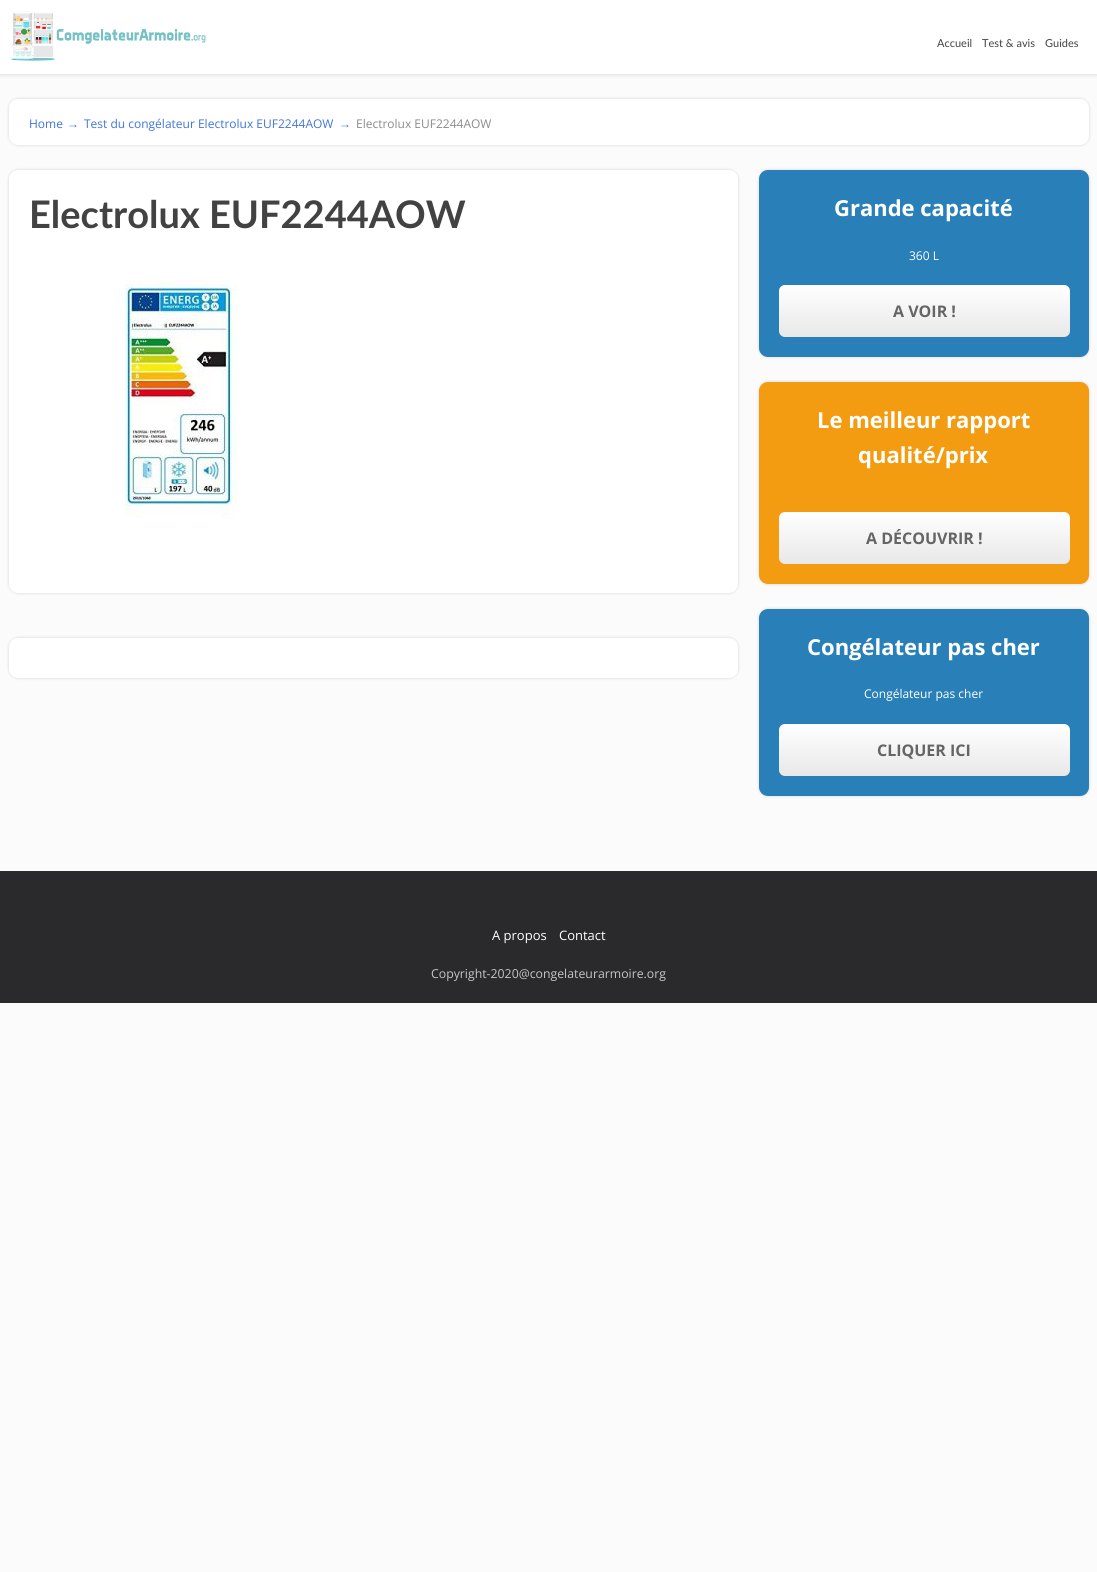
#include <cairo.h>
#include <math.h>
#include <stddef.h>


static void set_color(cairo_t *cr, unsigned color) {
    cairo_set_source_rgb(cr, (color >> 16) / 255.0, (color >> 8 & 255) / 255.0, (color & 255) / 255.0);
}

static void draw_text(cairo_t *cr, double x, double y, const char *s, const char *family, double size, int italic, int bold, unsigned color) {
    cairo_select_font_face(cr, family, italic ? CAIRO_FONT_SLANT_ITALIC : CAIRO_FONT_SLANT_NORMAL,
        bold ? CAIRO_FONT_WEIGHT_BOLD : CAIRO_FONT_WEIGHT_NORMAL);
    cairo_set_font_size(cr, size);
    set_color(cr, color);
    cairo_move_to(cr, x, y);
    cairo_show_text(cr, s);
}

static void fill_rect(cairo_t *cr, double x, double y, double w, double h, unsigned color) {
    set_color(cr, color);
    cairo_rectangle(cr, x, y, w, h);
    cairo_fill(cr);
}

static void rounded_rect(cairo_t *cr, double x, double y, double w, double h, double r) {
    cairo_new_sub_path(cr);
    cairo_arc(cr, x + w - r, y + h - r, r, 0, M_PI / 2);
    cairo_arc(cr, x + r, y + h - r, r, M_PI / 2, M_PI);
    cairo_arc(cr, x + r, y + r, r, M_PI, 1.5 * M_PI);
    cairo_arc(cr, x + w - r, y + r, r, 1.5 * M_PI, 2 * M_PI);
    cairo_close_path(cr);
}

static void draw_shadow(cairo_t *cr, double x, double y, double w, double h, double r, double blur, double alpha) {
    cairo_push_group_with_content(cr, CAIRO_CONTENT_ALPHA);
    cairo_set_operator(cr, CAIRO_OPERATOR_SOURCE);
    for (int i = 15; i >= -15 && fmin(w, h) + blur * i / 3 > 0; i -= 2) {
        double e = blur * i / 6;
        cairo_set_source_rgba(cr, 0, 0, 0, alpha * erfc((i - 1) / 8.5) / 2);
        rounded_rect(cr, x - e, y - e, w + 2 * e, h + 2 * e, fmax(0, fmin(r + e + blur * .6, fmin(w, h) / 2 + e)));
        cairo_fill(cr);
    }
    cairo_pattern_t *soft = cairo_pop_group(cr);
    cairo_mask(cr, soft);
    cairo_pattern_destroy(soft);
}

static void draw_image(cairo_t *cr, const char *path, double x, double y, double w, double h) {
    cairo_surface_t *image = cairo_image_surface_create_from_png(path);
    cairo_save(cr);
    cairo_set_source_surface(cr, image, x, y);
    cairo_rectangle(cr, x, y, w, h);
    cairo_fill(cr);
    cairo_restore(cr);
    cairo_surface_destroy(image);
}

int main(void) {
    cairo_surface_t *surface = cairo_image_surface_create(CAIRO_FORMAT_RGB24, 1097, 1572);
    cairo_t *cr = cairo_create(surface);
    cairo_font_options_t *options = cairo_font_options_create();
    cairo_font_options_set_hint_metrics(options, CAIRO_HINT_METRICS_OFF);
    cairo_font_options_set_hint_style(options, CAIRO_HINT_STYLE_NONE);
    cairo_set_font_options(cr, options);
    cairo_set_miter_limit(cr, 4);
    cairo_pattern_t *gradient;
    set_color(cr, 0xFBFBFB);
    cairo_paint(cr);
    set_color(cr, 0xDFDDDD);
    draw_shadow(cr, 0, 1, 1097, 74, 0, 2, 1);
    fill_rect(cr, 0, 0, 1097, 74, 0xFFFFFF);
    draw_image(cr, "assets/img1.png", 10, 11, 196, 50);
    draw_text(cr, 937, 47, "Accueil", "Lato", 11, 0, 0, 0x424242);
    draw_text(cr, 982, 47, "Test & avis", "Lato", 11, 0, 0, 0x424242);
    draw_text(cr, 1045, 47, "Guides", "Lato", 11, 0, 0, 0x424242);
    set_color(cr, 0x010101);
    draw_shadow(cr, 9, 99, 1080, 46, 9, 1.5, 0.16);
    set_color(cr, 0xFFFFFF);
    rounded_rect(cr, 9, 99, 1080, 46, 9);
    cairo_fill(cr);
    draw_text(cr, 29, 128, "Home", "Open Sans", 12, 0, 0, 0x4174DC);
    draw_text(cr, 67, 128, "→", "Liberation Sans", 12, 0, 0, 0x4174DC);
    draw_text(cr, 84, 128, "Test du congélateur Electrolux EUF2244AOW", "Open Sans", 12, 0, 0, 0x4174DC);
    draw_text(cr, 339, 128, "→", "Liberation Sans", 12, 0, 0, 0x4174DC);
    draw_text(cr, 356, 128, "Electrolux EUF2244AOW", "Open Sans", 12, 0, 0, 0x8C8B8B);
    set_color(cr, 0x010101);
    draw_shadow(cr, 9, 170, 729, 423, 9, 1.5, 0.16);
    set_color(cr, 0xFFFFFF);
    rounded_rect(cr, 9, 170, 729, 423, 9);
    cairo_fill(cr);
    draw_text(cr, 29, 228, "Electrolux EUF2244AOW", "Lato", 38, 0, 1, 0x424242);
    draw_image(cr, "assets/img2.png", 124, 280, 113, 238);
    set_color(cr, 0x010101);
    draw_shadow(cr, 9, 638, 729, 40, 9, 1.5, 0.16);
    set_color(cr, 0xFFFFFF);
    rounded_rect(cr, 9, 638, 729, 40, 9);
    cairo_fill(cr);
    set_color(cr, 0x010101);
    draw_shadow(cr, 759, 170, 330, 187, 9, 1.5, 0.16);
    set_color(cr, 0x2980B9);
    rounded_rect(cr, 759, 170, 330, 187, 9);
    cairo_fill(cr);
    draw_text(cr, 834, 216, "Grande capacité", "Open Sans", 22, 0, 1, 0xFFFFFF);
    draw_text(cr, 909, 260, "360 L", "Open Sans", 12, 0, 0, 0xFFFFFF);
    gradient = cairo_pattern_create_linear(925, 337, 925, 285);
    cairo_pattern_add_color_stop_rgba(gradient, 0, 0.91, 0.91, 0.91, 1);
    cairo_pattern_add_color_stop_rgba(gradient, 1, 1, 1, 1, 1);
    cairo_set_source(cr, gradient);
    cairo_pattern_destroy(gradient);
    rounded_rect(cr, 779, 285, 291, 52, 6);
    cairo_fill(cr);
    draw_text(cr, 893, 317, "A VOIR !", "Open Sans", 16, 0, 1, 0x666565);
    set_color(cr, 0x010101);
    draw_shadow(cr, 759, 382, 330, 202, 9, 1.5, 0.16);
    set_color(cr, 0xF39C12);
    rounded_rect(cr, 759, 382, 330, 202, 9);
    cairo_fill(cr);
    draw_text(cr, 817, 428, "Le meilleur rapport", "Open Sans", 22, 0, 1, 0xFFFFFF);
    draw_text(cr, 858, 463, "qualité/prix", "Open Sans", 22, 0, 1, 0xFFFFFF);
    gradient = cairo_pattern_create_linear(925, 564, 925, 512);
    cairo_pattern_add_color_stop_rgba(gradient, 0, 0.91, 0.91, 0.91, 1);
    cairo_pattern_add_color_stop_rgba(gradient, 1, 1, 1, 1, 1);
    cairo_set_source(cr, gradient);
    cairo_pattern_destroy(gradient);
    rounded_rect(cr, 779, 512, 291, 52, 6);
    cairo_fill(cr);
    draw_text(cr, 866, 544, "A DÉCOUVRIR !", "Open Sans", 16, 0, 1, 0x666565);
    set_color(cr, 0x010101);
    draw_shadow(cr, 759, 609, 330, 187, 9, 1.5, 0.16);
    set_color(cr, 0x2980B9);
    rounded_rect(cr, 759, 609, 330, 187, 9);
    cairo_fill(cr);
    draw_text(cr, 807, 655, "Congélateur pas cher", "Open Sans", 22, 0, 1, 0xFFFFFF);
    draw_text(cr, 864, 698, "Congélateur pas cher", "Open Sans", 12, 0, 0, 0xFFFFFF);
    gradient = cairo_pattern_create_linear(925, 776, 925, 724);
    cairo_pattern_add_color_stop_rgba(gradient, 0, 0.91, 0.91, 0.91, 1);
    cairo_pattern_add_color_stop_rgba(gradient, 1, 1, 1, 1, 1);
    cairo_set_source(cr, gradient);
    cairo_pattern_destroy(gradient);
    rounded_rect(cr, 779, 724, 291, 52, 6);
    cairo_fill(cr);
    draw_text(cr, 877, 756, "CLIQUER ICI", "Open Sans", 16, 0, 1, 0x666565);
    fill_rect(cr, 0, 871, 1097, 132, 0x2A2A2C);
    draw_text(cr, 492, 940, "A propos", "Open Sans", 13, 0, 0, 0xFFFFFF);
    draw_text(cr, 559, 940, "Contact", "Open Sans", 13, 0, 0, 0xFFFFFF);
    draw_text(cr, 431, 978, "Copyright-2020@congelateurarmoire.org", "Open Sans", 12.3, 0, 0, 0xC5C5C5);
    cairo_surface_write_to_png(surface, "output.png");
    cairo_font_options_destroy(options);
    cairo_destroy(cr);
    cairo_surface_destroy(surface);
    return 0;
}
